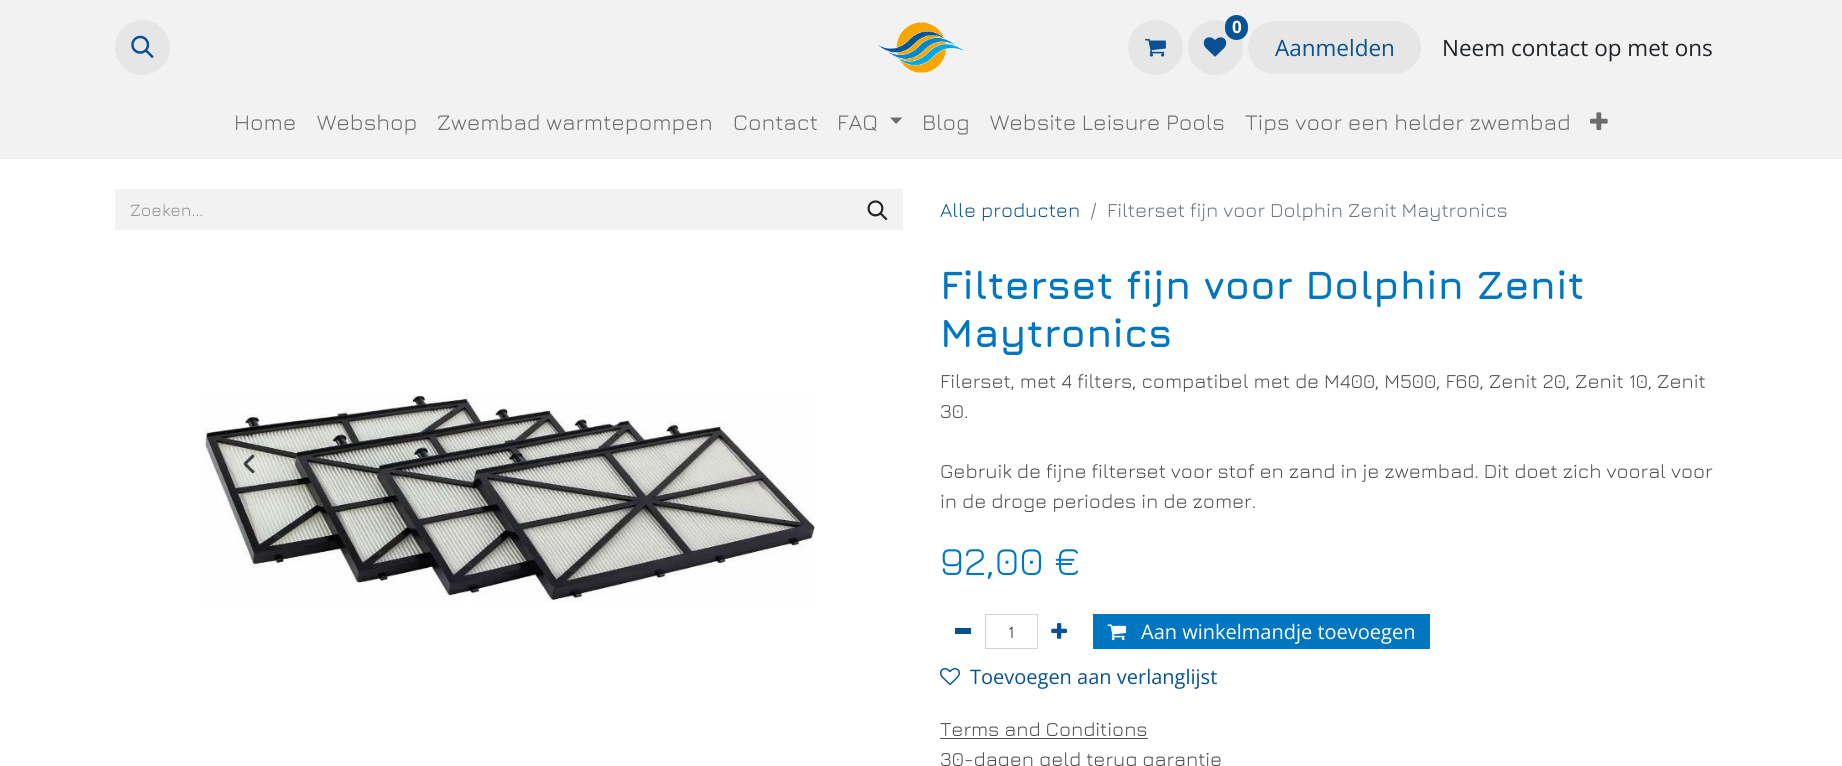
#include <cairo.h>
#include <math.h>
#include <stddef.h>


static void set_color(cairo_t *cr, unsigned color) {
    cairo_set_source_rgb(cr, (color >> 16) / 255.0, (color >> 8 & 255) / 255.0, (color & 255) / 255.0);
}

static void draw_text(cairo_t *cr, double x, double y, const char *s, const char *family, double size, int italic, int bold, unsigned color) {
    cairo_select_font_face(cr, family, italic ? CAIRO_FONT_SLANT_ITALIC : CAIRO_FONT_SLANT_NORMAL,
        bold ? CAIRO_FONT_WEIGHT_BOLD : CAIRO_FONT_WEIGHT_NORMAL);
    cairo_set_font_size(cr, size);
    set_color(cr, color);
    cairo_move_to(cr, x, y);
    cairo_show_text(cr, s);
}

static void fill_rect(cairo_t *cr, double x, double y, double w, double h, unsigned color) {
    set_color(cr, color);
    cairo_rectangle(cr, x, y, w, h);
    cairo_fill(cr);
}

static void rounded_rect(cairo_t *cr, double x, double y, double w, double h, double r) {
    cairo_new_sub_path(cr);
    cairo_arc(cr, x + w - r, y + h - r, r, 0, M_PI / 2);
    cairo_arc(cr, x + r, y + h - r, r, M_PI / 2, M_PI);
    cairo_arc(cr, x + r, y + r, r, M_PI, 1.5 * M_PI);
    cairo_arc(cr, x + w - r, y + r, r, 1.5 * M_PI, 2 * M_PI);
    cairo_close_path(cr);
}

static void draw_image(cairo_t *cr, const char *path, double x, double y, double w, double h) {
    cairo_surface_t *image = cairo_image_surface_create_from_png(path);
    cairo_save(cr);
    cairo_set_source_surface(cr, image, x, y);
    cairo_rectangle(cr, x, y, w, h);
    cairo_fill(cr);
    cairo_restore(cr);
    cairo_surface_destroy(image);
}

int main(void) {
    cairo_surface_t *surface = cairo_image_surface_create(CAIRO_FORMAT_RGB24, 1842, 766);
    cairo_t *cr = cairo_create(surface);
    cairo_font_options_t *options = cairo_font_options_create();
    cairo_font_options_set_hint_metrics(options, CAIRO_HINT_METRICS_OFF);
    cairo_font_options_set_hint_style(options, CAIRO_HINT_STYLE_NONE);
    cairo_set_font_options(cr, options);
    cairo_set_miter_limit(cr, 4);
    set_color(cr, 0xFFFFFF);
    cairo_paint(cr);
    fill_rect(cr, 0, 0, 1842, 159, 0xF2F2F2);
    set_color(cr, 0xE6E6E6);
    cairo_arc(cr, 142.5, 47.5, 27.5, 0, 2 * M_PI);
    cairo_fill(cr);
    draw_image(cr, "assets/img1.png", 131, 35, 23, 24);
    draw_image(cr, "assets/img2.png", 877, 22, 89, 51);
    cairo_arc(cr, 1155.5, 47.5, 27.5, 0, 2 * M_PI);
    cairo_fill(cr);
    draw_image(cr, "assets/img3.png", 1145, 38, 21, 19);
    cairo_arc(cr, 1215.5, 47.5, 27.5, 0, 2 * M_PI);
    cairo_fill(cr);
    draw_image(cr, "assets/img4.png", 1203, 37, 24, 20);
    set_color(cr, 0x085294);
    rounded_rect(cr, 1225, 15, 23, 25, 11.5);
    cairo_fill(cr);
    draw_text(cr, 1232, 33, "0", "Open Sans", 17, 0, 1, 0xFFFFFF);
    set_color(cr, 0xE6E6E6);
    rounded_rect(cr, 1248, 21, 173, 53, 26.5);
    cairo_fill(cr);
    draw_text(cr, 1275, 56, "Aanmelden", "Open Sans", 22.5, 0, 0, 0x085294);
    draw_text(cr, 1442, 56, "Neem contact op met ons", "Open Sans", 22.5, 0, 0, 0x212529);
    draw_text(cr, 234, 130, "Home", "Jura", 22.5, 0, 0, 0x6D6D6D);
    draw_text(cr, 317, 130, "Webshop", "Jura", 22.5, 0, 0, 0x6D6D6D);
    draw_text(cr, 437, 130, "Zwembad warmtepompen", "Jura", 22.5, 0, 0, 0x6D6D6D);
    draw_text(cr, 733, 130, "Contact", "Jura", 22.5, 0, 0, 0x6D6D6D);
    draw_text(cr, 837, 130, "FAQ", "Jura", 22.5, 0, 0, 0x6D6D6D);
    cairo_new_path(cr);
    cairo_move_to(cr, 890, 117.5);
    cairo_line_to(cr, 902.5, 117.5);
    cairo_line_to(cr, 896, 124);
    cairo_close_path(cr);
    cairo_fill(cr);
    draw_text(cr, 922, 130, "Blog", "Jura", 22.5, 0, 0, 0x6D6D6D);
    draw_text(cr, 990, 130, "Website Leisure Pools", "Jura", 22.5, 0, 0, 0x6D6D6D);
    draw_text(cr, 1245, 130, "Tips voor een helder zwembad", "Jura", 22.5, 0, 0, 0x6D6D6D);
    draw_image(cr, "assets/img5.png", 1590, 112, 18, 18);
    fill_rect(cr, 115, 189, 788, 41, 0xF2F2F2);
    draw_text(cr, 130, 216, "Zoeken...", "Jura", 17.5, 0, 0, 0x909294);
    draw_image(cr, "assets/img6.png", 867, 200, 21, 21);
    draw_text(cr, 940, 217, "Alle producten", "Jura", 20, 0, 0, 0x085294);
    draw_text(cr, 1090, 217, "/", "Jura", 20, 0, 0, 0x6C757D);
    draw_text(cr, 1107, 217, "Filterset fijn voor Dolphin Zenit Maytronics", "Jura", 20, 0, 0, 0x6C757D);
    draw_image(cr, "assets/img7.png", 203, 394, 612, 208);
    draw_text(cr, 940, 299, "Filterset fijn voor Dolphin Zenit", "Jura", 40, 0, 1, 0x0076C0);
    draw_text(cr, 940, 347, "Maytronics", "Jura", 40, 0, 1, 0x0076C0);
    draw_text(cr, 940, 388, "Filerset, met 4 filters, compatibel met de M400, M500, F60, Zenit 20, Zenit 10, Zenit", "Jura", 20, 0, 0, 0x4D4D4D);
    draw_text(cr, 940, 418, "30.", "Jura", 20, 0, 0, 0x4D4D4D);
    draw_text(cr, 940, 478, "Gebruik de fijne filterset voor stof en zand in je zwembad. Dit doet zich vooral voor", "Jura", 20, 0, 0, 0x4D4D4D);
    draw_text(cr, 940, 508, "in de droge periodes in de zomer.", "Jura", 20, 0, 0, 0x4D4D4D);
    draw_text(cr, 940, 575, "92,00 €", "Jura", 40, 0, 0, 0x0076C0);
    fill_rect(cr, 955, 628, 16, 6, 0x085294);
    cairo_rectangle(cr, 985.5, 614.5, 52, 34);
    set_color(cr, 0xCED4DA);
    cairo_set_line_width(cr, 1);
    cairo_stroke(cr);
    draw_text(cr, 1008, 638, "1", "Jura", 17.5, 0, 0, 0x212529);
    draw_image(cr, "assets/img8.png", 1051, 623, 16, 16);
    fill_rect(cr, 1093, 614, 337, 35, 0x0076C0);
    draw_image(cr, "assets/img9.png", 1107, 624, 20, 17);
    draw_text(cr, 1141, 639, "Aan winkelmandje toevoegen", "Open Sans", 20, 0, 0, 0xFFFFFF);
    draw_image(cr, "assets/img10.png", 940, 668, 20, 18);
    draw_text(cr, 970, 684, "Toevoegen aan verlanglijst", "Open Sans", 20, 0, 0, 0x085294);
    draw_text(cr, 940, 736, "Terms and Conditions", "Jura", 20, 0, 0, 0x4D4D4D);
    fill_rect(cr, 940, 738, 208, 1, 0x4D4D4D);
    draw_text(cr, 940, 766, "30-dagen geld terug garantie", "Jura", 20, 0, 0, 0x4D4D4D);
    cairo_surface_write_to_png(surface, "output.png");
    cairo_font_options_destroy(options);
    cairo_destroy(cr);
    cairo_surface_destroy(surface);
    return 0;
}
